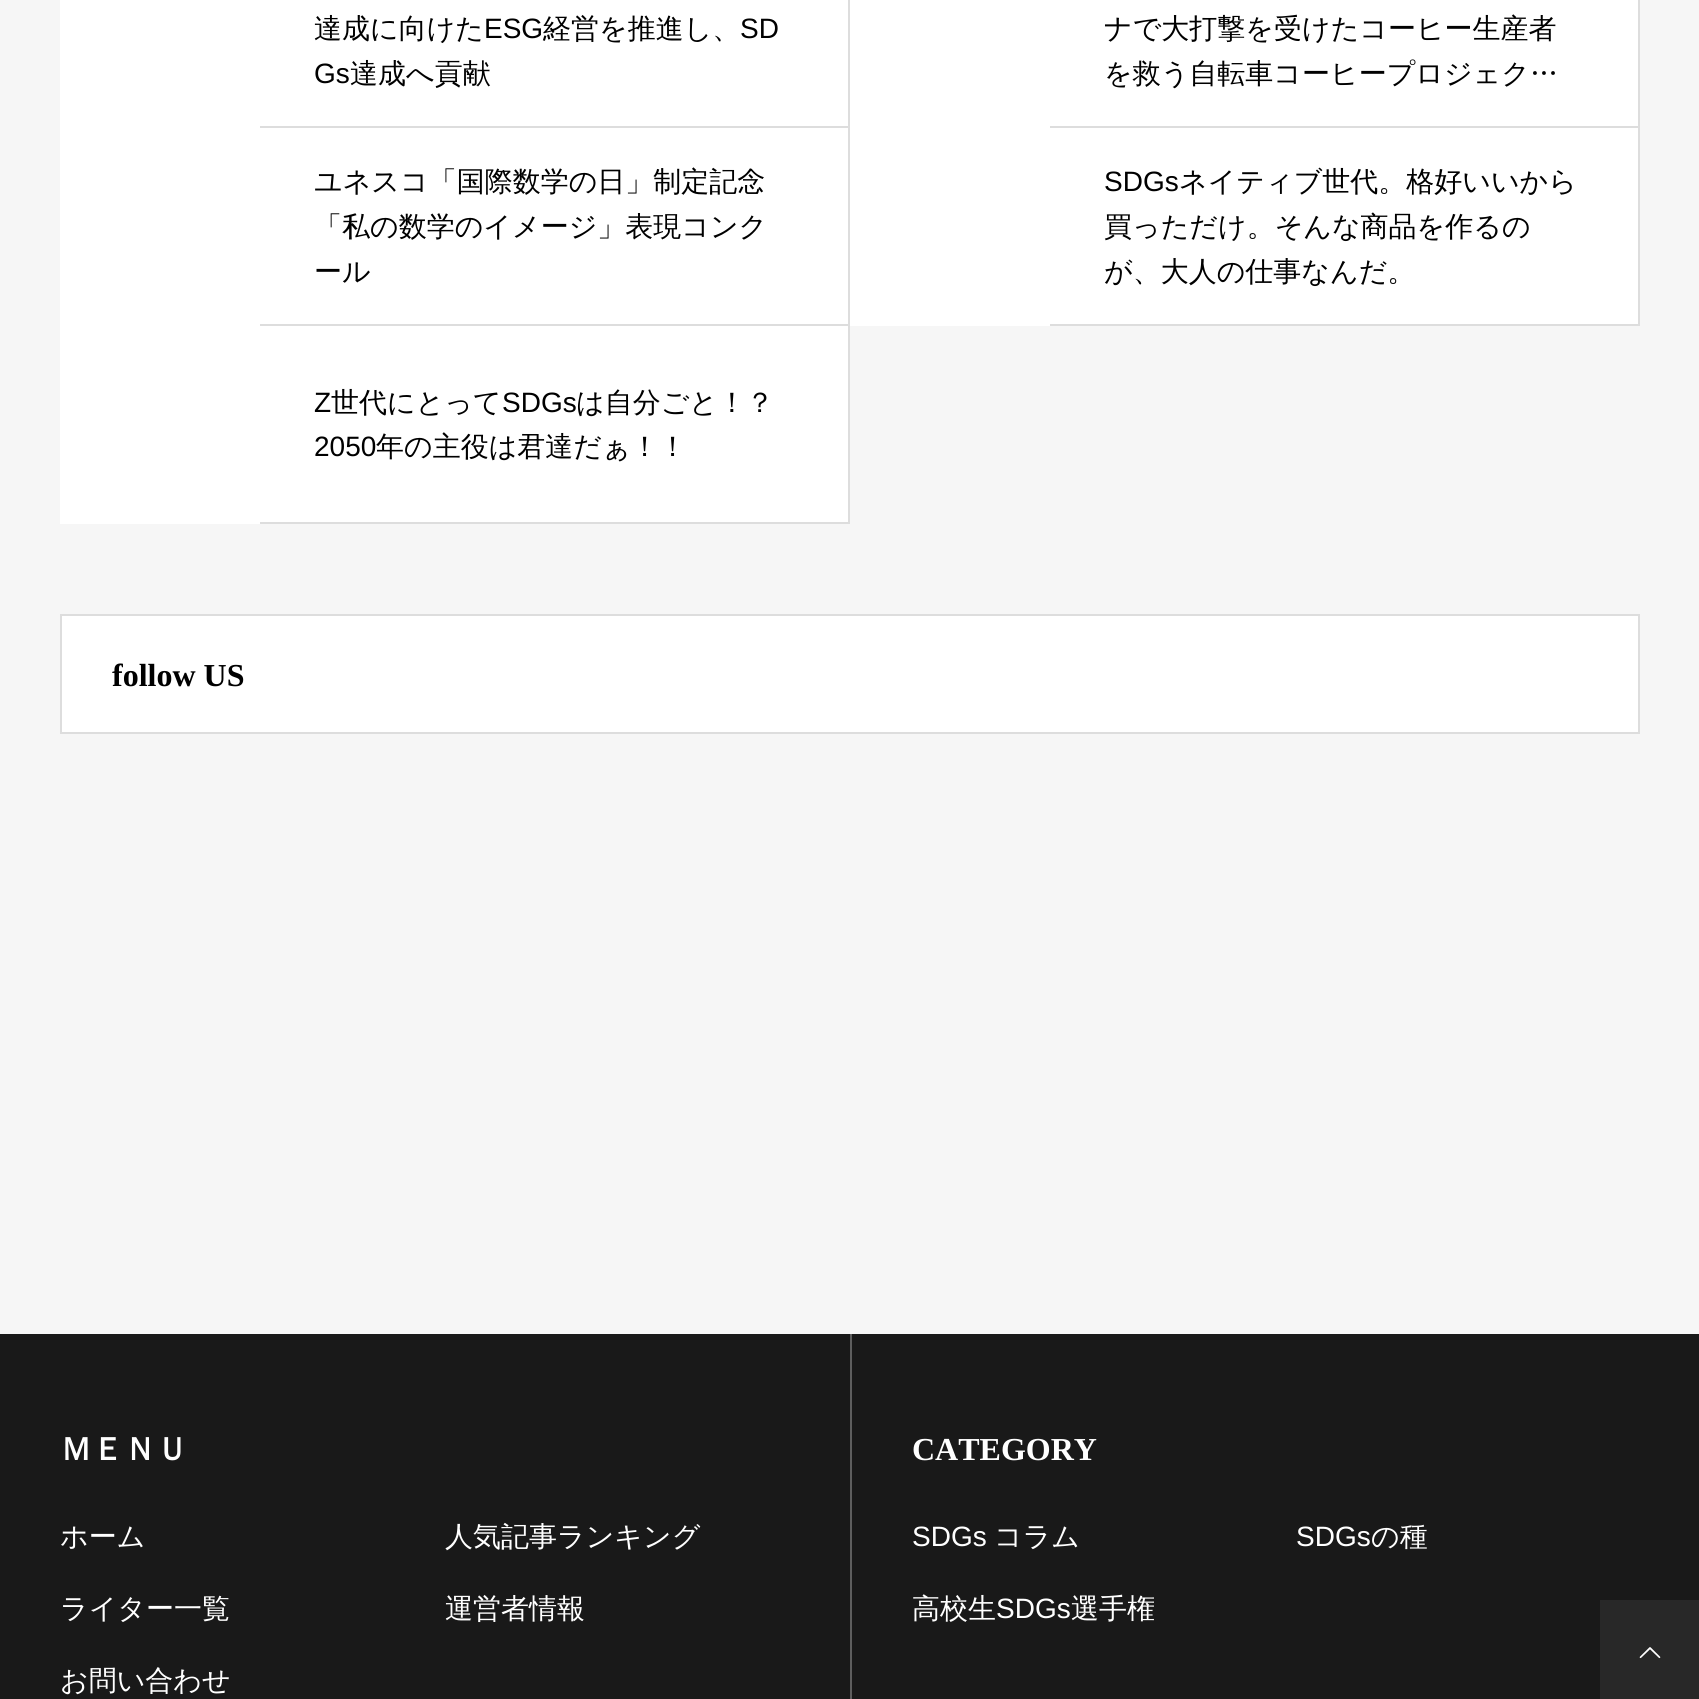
#include <cairo.h>
#include <math.h>
#include <stddef.h>


static void set_color(cairo_t *cr, unsigned color) {
    cairo_set_source_rgb(cr, (color >> 16) / 255.0, (color >> 8 & 255) / 255.0, (color & 255) / 255.0);
}

static void draw_text(cairo_t *cr, double x, double y, const char *s, const char *family, double size, int italic, int bold, unsigned color) {
    cairo_select_font_face(cr, family, italic ? CAIRO_FONT_SLANT_ITALIC : CAIRO_FONT_SLANT_NORMAL,
        bold ? CAIRO_FONT_WEIGHT_BOLD : CAIRO_FONT_WEIGHT_NORMAL);
    cairo_set_font_size(cr, size);
    set_color(cr, color);
    cairo_move_to(cr, x, y);
    cairo_show_text(cr, s);
}

static void fill_rect(cairo_t *cr, double x, double y, double w, double h, unsigned color) {
    set_color(cr, color);
    cairo_rectangle(cr, x, y, w, h);
    cairo_fill(cr);
}

static void draw_image(cairo_t *cr, const char *path, double x, double y, double w, double h) {
    cairo_surface_t *image = cairo_image_surface_create_from_png(path);
    cairo_save(cr);
    cairo_set_source_surface(cr, image, x, y);
    cairo_rectangle(cr, x, y, w, h);
    cairo_fill(cr);
    cairo_restore(cr);
    cairo_surface_destroy(image);
}

int main(void) {
    cairo_surface_t *surface = cairo_image_surface_create(CAIRO_FORMAT_RGB24, 1699, 1699);
    cairo_t *cr = cairo_create(surface);
    cairo_font_options_t *options = cairo_font_options_create();
    cairo_font_options_set_hint_metrics(options, CAIRO_HINT_METRICS_OFF);
    cairo_font_options_set_hint_style(options, CAIRO_HINT_STYLE_NONE);
    cairo_set_font_options(cr, options);
    cairo_set_miter_limit(cr, 4);
    set_color(cr, 0xF6F6F6);
    cairo_paint(cr);
    fill_rect(cr, 0, 1334, 1699, 365, 0x191919);
    fill_rect(cr, 60, 0, 788, 524, 0xFFFFFF);
    fill_rect(cr, 848, 0, 2, 128, 0xDDDDDD);
    draw_text(cr, 314, 38, "達成に向けた", "WenQuanYi Zen Hei Medium", 28, 0, 0, 0x000000);
    draw_text(cr, 484, 38, "ESG", "Liberation Sans", 28, 0, 0, 0x000000);
    draw_text(cr, 543, 38, "経営を推進し、", "WenQuanYi Zen Hei Medium", 28, 0, 0, 0x000000);
    draw_text(cr, 740, 38, "SD", "Liberation Sans", 28, 0, 0, 0x000000);
    draw_text(cr, 314, 83, "Gs", "Liberation Sans", 28, 0, 0, 0x000000);
    draw_text(cr, 350, 83, "達成へ貢献", "WenQuanYi Zen Hei Medium", 28, 0, 0, 0x000000);
    fill_rect(cr, 850, 0, 788, 326, 0xFFFFFF);
    fill_rect(cr, 1638, 0, 2, 128, 0xDDDDDD);
    draw_text(cr, 1104, 38, "ナで大打撃を受けたコーヒー生産者", "WenQuanYi Zen Hei Medium", 28, 0, 0, 0x000000);
    draw_text(cr, 1104, 83, "を救う自転車コーヒープロジェク…", "WenQuanYi Zen Hei Medium", 28, 0, 0, 0x000000);
    fill_rect(cr, 260, 126, 590, 2, 0xDDDDDD);
    fill_rect(cr, 848, 126, 2, 200, 0xDDDDDD);
    draw_text(cr, 314, 191, "ユネスコ「国際数学の日」制定記念", "WenQuanYi Zen Hei Medium", 28, 0, 0, 0x000000);
    draw_text(cr, 314, 236, "「私の数学のイメージ」表現コンク", "WenQuanYi Zen Hei Medium", 28, 0, 0, 0x000000);
    draw_text(cr, 314, 281, "ール", "WenQuanYi Zen Hei Medium", 28, 0, 0, 0x000000);
    fill_rect(cr, 1050, 126, 590, 2, 0xDDDDDD);
    fill_rect(cr, 1638, 126, 2, 200, 0xDDDDDD);
    fill_rect(cr, 1050, 324, 590, 2, 0xDDDDDD);
    draw_text(cr, 1104, 191, "SDGs", "Liberation Sans", 28, 0, 0, 0x000000);
    draw_text(cr, 1179, 191, "ネイティブ世代。格好いいから", "WenQuanYi Zen Hei Medium", 28, 0, 0, 0x000000);
    draw_text(cr, 1104, 236, "買っただけ。そんな商品を作るの", "WenQuanYi Zen Hei Medium", 28, 0, 0, 0x000000);
    draw_text(cr, 1104, 281, "が、大人の仕事なんだ。", "WenQuanYi Zen Hei Medium", 28, 0, 0, 0x000000);
    fill_rect(cr, 260, 324, 590, 2, 0xDDDDDD);
    fill_rect(cr, 848, 324, 2, 200, 0xDDDDDD);
    fill_rect(cr, 260, 522, 590, 2, 0xDDDDDD);
    draw_text(cr, 314, 412, "Z", "Liberation Sans", 28, 0, 0, 0x000000);
    draw_text(cr, 331, 412, "世代にとって", "WenQuanYi Zen Hei Medium", 28, 0, 0, 0x000000);
    draw_text(cr, 502, 412, "SDGs", "Liberation Sans", 28, 0, 0, 0x000000);
    draw_text(cr, 576, 412, "は自分ごと！？", "WenQuanYi Zen Hei Medium", 28, 0, 0, 0x000000);
    draw_text(cr, 314, 456, "2050", "Liberation Sans", 28, 0, 0, 0x000000);
    draw_text(cr, 376, 456, "年の主役は君達だぁ！！", "WenQuanYi Zen Hei Medium", 28, 0, 0, 0x000000);
    set_color(cr, 0xFFFFFF);
    cairo_rectangle(cr, 61, 615, 1578, 118);
    cairo_fill_preserve(cr);
    set_color(cr, 0xDDDDDD);
    cairo_stroke(cr);
    draw_text(cr, 112, 686, "follow US", "Liberation Serif", 32, 0, 1, 0x000000);
    draw_text(cr, 60, 1460, "ＭＥＮＵ", "WenQuanYi Zen Hei", 32, 0, 1, 0xFFFFFF);
    draw_text(cr, 60, 1546, "ホーム", "WenQuanYi Zen Hei Medium", 28, 0, 0, 0xFFFFFF);
    draw_text(cr, 445, 1546, "人気記事ランキング", "WenQuanYi Zen Hei Medium", 28, 0, 0, 0xFFFFFF);
    draw_text(cr, 60, 1618, "ライター一覧", "WenQuanYi Zen Hei Medium", 28, 0, 0, 0xFFFFFF);
    draw_text(cr, 445, 1618, "運営者情報", "WenQuanYi Zen Hei Medium", 28, 0, 0, 0xFFFFFF);
    draw_text(cr, 60, 1690, "お問い合わせ", "WenQuanYi Zen Hei Medium", 28, 0, 0, 0xFFFFFF);
    fill_rect(cr, 850, 1334, 2, 365, 0x5E5E5E);
    draw_text(cr, 912, 1460, "CATEGORY", "Liberation Serif", 32, 0, 1, 0xFFFFFF);
    draw_text(cr, 912, 1546, "SDGs", "Liberation Sans", 28, 0, 0, 0xFFFFFF);
    draw_text(cr, 994, 1546, "コラム", "WenQuanYi Zen Hei Medium", 28, 0, 0, 0xFFFFFF);
    draw_text(cr, 1296, 1546, "SDGs", "Liberation Sans", 28, 0, 0, 0xFFFFFF);
    draw_text(cr, 1371, 1546, "の種", "WenQuanYi Zen Hei Medium", 28, 0, 0, 0xFFFFFF);
    draw_text(cr, 912, 1618, "高校生", "WenQuanYi Zen Hei Medium", 28, 0, 0, 0xFFFFFF);
    draw_text(cr, 996, 1618, "SDGs", "Liberation Sans", 28, 0, 0, 0xFFFFFF);
    draw_text(cr, 1071, 1618, "選手権", "WenQuanYi Zen Hei Medium", 28, 0, 0, 0xFFFFFF);
    fill_rect(cr, 1600, 1600, 99, 99, 0x282828);
    draw_image(cr, "assets/img1.png", 1639, 1647, 22, 12);
    cairo_surface_write_to_png(surface, "output.png");
    cairo_font_options_destroy(options);
    cairo_destroy(cr);
    cairo_surface_destroy(surface);
    return 0;
}
